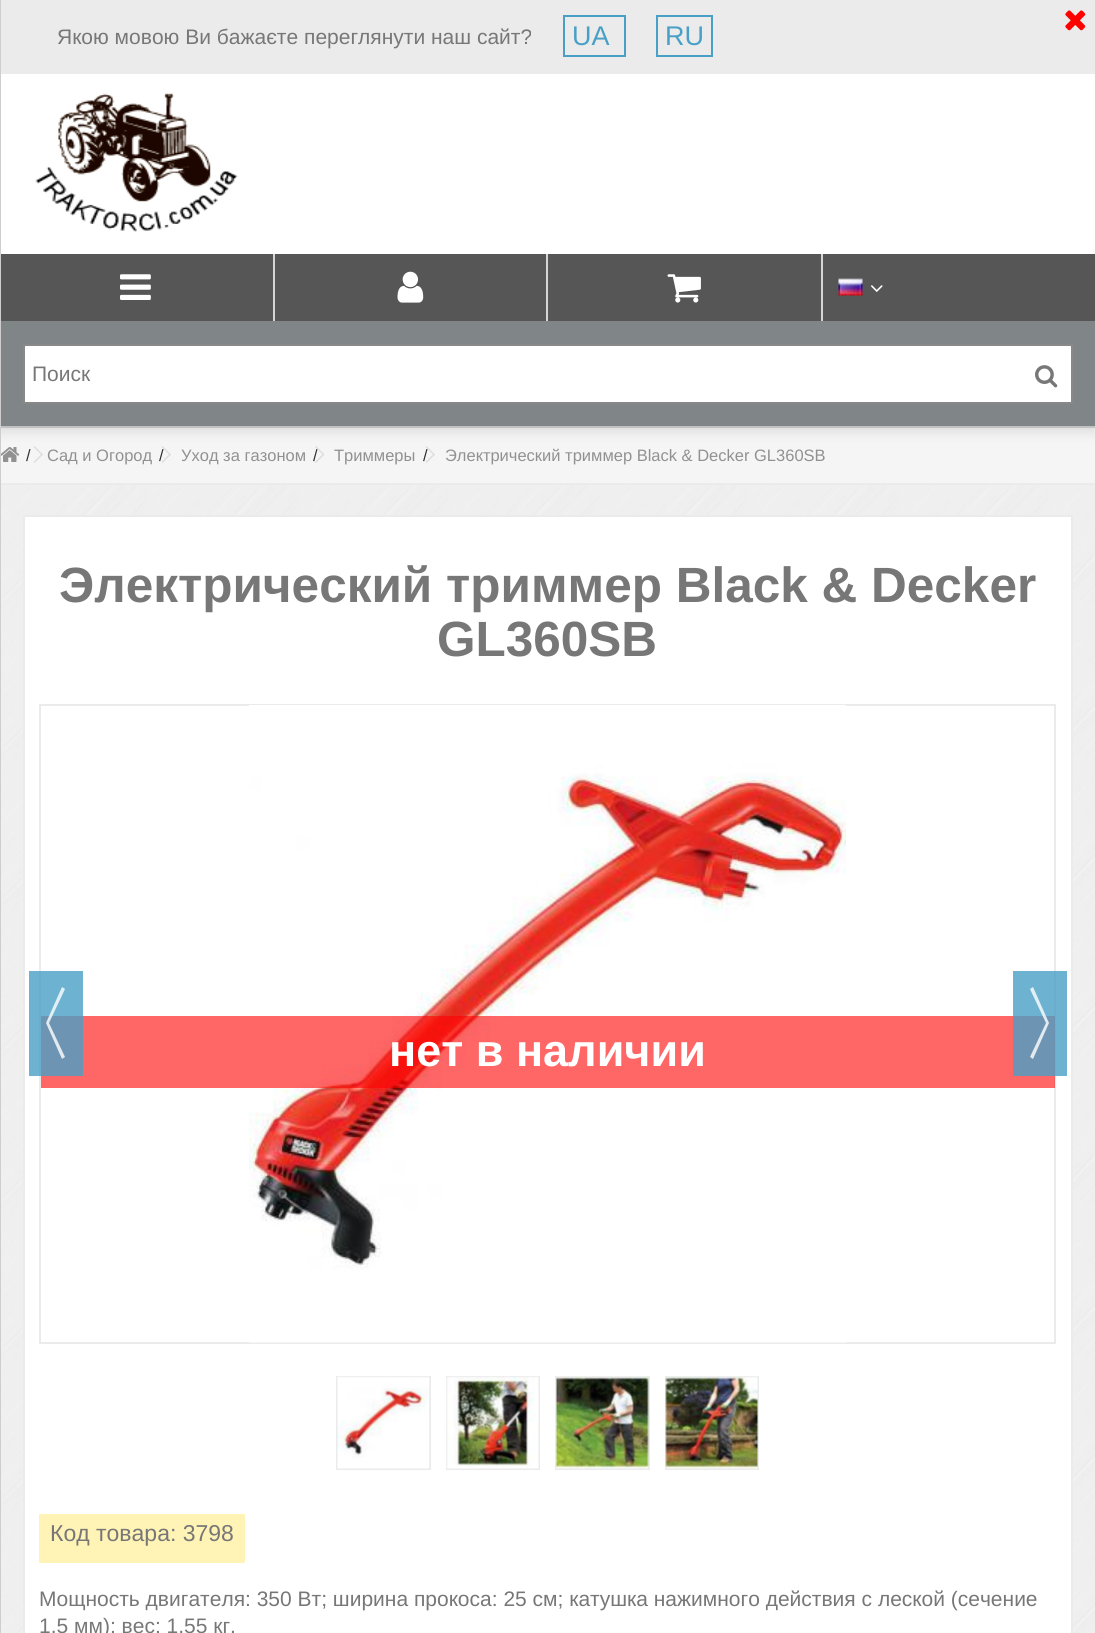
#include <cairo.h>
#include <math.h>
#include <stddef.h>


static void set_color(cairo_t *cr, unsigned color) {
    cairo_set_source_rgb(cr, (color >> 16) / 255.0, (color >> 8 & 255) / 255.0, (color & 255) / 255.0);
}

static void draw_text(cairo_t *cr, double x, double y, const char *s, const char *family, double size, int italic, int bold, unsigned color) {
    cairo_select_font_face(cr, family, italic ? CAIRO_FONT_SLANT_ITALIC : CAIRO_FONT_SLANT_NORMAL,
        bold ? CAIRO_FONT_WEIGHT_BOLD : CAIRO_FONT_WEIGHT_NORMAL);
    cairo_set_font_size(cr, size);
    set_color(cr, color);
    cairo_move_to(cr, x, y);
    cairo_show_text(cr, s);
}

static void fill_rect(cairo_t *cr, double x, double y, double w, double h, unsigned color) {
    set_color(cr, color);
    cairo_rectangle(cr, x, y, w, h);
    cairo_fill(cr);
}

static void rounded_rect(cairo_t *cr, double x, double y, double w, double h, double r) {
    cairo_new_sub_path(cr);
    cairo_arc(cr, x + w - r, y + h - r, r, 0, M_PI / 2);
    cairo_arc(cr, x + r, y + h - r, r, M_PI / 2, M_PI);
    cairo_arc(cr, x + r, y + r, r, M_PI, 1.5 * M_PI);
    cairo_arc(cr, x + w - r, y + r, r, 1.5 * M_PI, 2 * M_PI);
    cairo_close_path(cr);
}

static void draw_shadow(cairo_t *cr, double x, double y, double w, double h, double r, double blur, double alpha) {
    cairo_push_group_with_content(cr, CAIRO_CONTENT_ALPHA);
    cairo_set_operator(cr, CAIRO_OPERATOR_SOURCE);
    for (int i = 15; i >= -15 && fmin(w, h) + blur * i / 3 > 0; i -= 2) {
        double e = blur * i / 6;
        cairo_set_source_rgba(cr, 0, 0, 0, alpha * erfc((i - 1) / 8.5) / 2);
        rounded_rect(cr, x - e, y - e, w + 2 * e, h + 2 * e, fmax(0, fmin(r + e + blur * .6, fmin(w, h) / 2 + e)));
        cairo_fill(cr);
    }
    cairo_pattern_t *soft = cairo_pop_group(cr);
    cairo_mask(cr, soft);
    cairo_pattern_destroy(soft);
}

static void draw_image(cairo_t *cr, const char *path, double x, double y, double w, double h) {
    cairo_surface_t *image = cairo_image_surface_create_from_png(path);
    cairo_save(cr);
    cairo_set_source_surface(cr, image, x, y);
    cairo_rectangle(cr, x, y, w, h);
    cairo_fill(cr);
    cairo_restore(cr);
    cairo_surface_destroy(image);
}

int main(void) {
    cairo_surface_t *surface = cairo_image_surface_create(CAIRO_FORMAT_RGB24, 1095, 1633);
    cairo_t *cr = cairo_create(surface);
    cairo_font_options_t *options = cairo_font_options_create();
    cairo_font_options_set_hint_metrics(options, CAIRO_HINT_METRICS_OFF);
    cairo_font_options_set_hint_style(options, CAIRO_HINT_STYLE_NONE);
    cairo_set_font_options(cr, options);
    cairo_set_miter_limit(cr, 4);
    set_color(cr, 0xFFFFFF);
    cairo_paint(cr);
    fill_rect(cr, 0, 426, 1095, 2, 0xD6D4D4);
    fill_rect(cr, 1, 428, 1094, 55, 0xF5F5F5);
    draw_image(cr, "assets/img9.png", 1, 447, 19, 15);
    set_color(cr, 0xDDDDDD);
    cairo_new_path(cr);
    cairo_move_to(cr, 34.5, 446);
    cairo_line_to(cr, 43, 454.5);
    cairo_line_to(cr, 42, 455.5);
    cairo_line_to(cr, 33.5, 447);
    cairo_close_path(cr);
    cairo_fill(cr);
    draw_text(cr, 159, 461, "/", "Liberation Sans", 16.5, 0, 0, 0x333333);
    set_color(cr, 0xDDDDDD);
    cairo_new_path(cr);
    cairo_move_to(cr, 162.5, 446);
    cairo_line_to(cr, 171, 454.5);
    cairo_line_to(cr, 170, 455.5);
    cairo_line_to(cr, 161.5, 447);
    cairo_close_path(cr);
    cairo_fill(cr);
    draw_text(cr, 313, 461, "/", "Liberation Sans", 16.5, 0, 0, 0x333333);
    set_color(cr, 0xDDDDDD);
    cairo_new_path(cr);
    cairo_move_to(cr, 316, 446);
    cairo_line_to(cr, 324.5, 454.5);
    cairo_line_to(cr, 323.5, 455.5);
    cairo_line_to(cr, 315, 447);
    cairo_close_path(cr);
    cairo_fill(cr);
    draw_text(cr, 423, 461, "/", "Liberation Sans", 16.5, 0, 0, 0x333333);
    set_color(cr, 0xDDDDDD);
    cairo_new_path(cr);
    cairo_move_to(cr, 426.5, 446);
    cairo_line_to(cr, 435, 454.5);
    cairo_line_to(cr, 434, 455.5);
    cairo_line_to(cr, 425.5, 447);
    cairo_close_path(cr);
    cairo_fill(cr);
    set_color(cr, 0x000000);
    draw_shadow(cr, 0, 324, 1095, 105, 0, 7.5, 0.15);
    fill_rect(cr, 0, 483, 1095, 2, 0xEBEBEB);
    fill_rect(cr, 0, 0, 1, 1633, 0xCECECE);
    fill_rect(cr, 1, 0, 1094, 74, 0xEBEBEB);
    draw_image(cr, "assets/img1.png", 1065, 10, 21, 21);
    draw_text(cr, 57, 44, "Якою мовою Ви бажаєте переглянути наш сайт?", "Liberation Sans", 21, 0, 0, 0x777777);
    cairo_rectangle(cr, 564, 16, 61, 40);
    set_color(cr, 0x49A0C6);
    cairo_stroke(cr);
    draw_text(cr, 572, 45, "UA", "Liberation Sans", 27, 0, 0, 0x49A0C6);
    cairo_rectangle(cr, 657, 16, 55, 40);
    cairo_stroke(cr);
    draw_text(cr, 665, 45, "RU", "Liberation Sans", 27, 0, 0, 0x49A0C6);
    draw_image(cr, "assets/img2.png", 35, 93, 203, 139);
    fill_rect(cr, 1, 254, 1094, 67, 0x565656);
    fill_rect(cr, 273, 254, 2, 67, 0xD6D4D4);
    draw_image(cr, "assets/img3.png", 120, 274, 31, 26);
    fill_rect(cr, 546, 254, 2, 67, 0xD6D4D4);
    draw_image(cr, "assets/img4.png", 397, 271, 27, 32);
    fill_rect(cr, 821, 254, 2, 67, 0xD6D4D4);
    draw_image(cr, "assets/img5.png", 667, 274, 34, 29);
    draw_image(cr, "assets/img6.png", 838, 278, 25, 18);
    draw_image(cr, "assets/img7.png", 871, 285, 12, 7);
    fill_rect(cr, 1, 321, 1094, 105, 0x808688);
    set_color(cr, 0xFFFFFF);
    cairo_rectangle(cr, 24, 345, 1048, 58);
    cairo_fill_preserve(cr);
    set_color(cr, 0x888888);
    cairo_stroke(cr);
    draw_text(cr, 32, 381, "Поиск", "Liberation Sans", 21, 0, 0, 0x777777);
    draw_image(cr, "assets/img8.png", 1035, 365, 23, 23);
    set_color(cr, 0xDDDDDD);
    cairo_new_path(cr);
    cairo_move_to(cr, 42, 453.5);
    cairo_line_to(cr, 43, 454.5);
    cairo_line_to(cr, 34.5, 463);
    cairo_line_to(cr, 33.5, 462);
    cairo_close_path(cr);
    cairo_fill(cr);
    draw_text(cr, 26, 461, "/", "Liberation Sans", 16.5, 0, 0, 0x333333);
    draw_text(cr, 47, 461, "Сад и Огород", "Liberation Sans", 16.5, 0, 0, 0x919191);
    set_color(cr, 0xDDDDDD);
    cairo_new_path(cr);
    cairo_move_to(cr, 170, 453.5);
    cairo_line_to(cr, 171, 454.5);
    cairo_line_to(cr, 162.5, 463);
    cairo_line_to(cr, 161.5, 462);
    cairo_close_path(cr);
    cairo_fill(cr);
    draw_text(cr, 181, 461, "Уход за газоном", "Liberation Sans", 16.5, 0, 0, 0x919191);
    set_color(cr, 0xDDDDDD);
    cairo_new_path(cr);
    cairo_move_to(cr, 323.5, 453.5);
    cairo_line_to(cr, 324.5, 454.5);
    cairo_line_to(cr, 316, 463);
    cairo_line_to(cr, 315, 462);
    cairo_close_path(cr);
    cairo_fill(cr);
    draw_text(cr, 334, 461, "Триммеры", "Liberation Sans", 16.5, 0, 0, 0x919191);
    set_color(cr, 0xDDDDDD);
    cairo_new_path(cr);
    cairo_move_to(cr, 434, 453.5);
    cairo_line_to(cr, 435, 454.5);
    cairo_line_to(cr, 426.5, 463);
    cairo_line_to(cr, 425.5, 462);
    cairo_close_path(cr);
    cairo_fill(cr);
    draw_text(cr, 445, 461, "Электрический триммер Black & Decker GL360SB", "Liberation Sans", 16.5, 0, 0, 0x919191);
    draw_image(cr, "assets/img10.png", 1, 485, 1094, 1148);
    set_color(cr, 0xFFFFFF);
    cairo_rectangle(cr, 24, 516, 1048, 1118);
    cairo_fill_preserve(cr);
    set_color(cr, 0xEBEBEB);
    cairo_stroke(cr);
    draw_text(cr, 59, 602, "Электрический триммер Black & Decker", "Liberation Sans", 49.5, 0, 1, 0x777777);
    draw_text(cr, 437, 656, "GL360SB", "Liberation Sans", 49.5, 0, 1, 0x777777);
    cairo_rectangle(cr, 40, 705, 1015, 638);
    set_color(cr, 0xEBEBEB);
    cairo_stroke(cr);
    draw_image(cr, "assets/img11.png", 249, 705, 597, 638);
    cairo_set_source_rgba(cr, 1, 0, 0, 0.6);
    cairo_rectangle(cr, 41, 1016, 1014, 72);
    cairo_fill(cr);
    cairo_set_source_rgba(cr, 0.286, 0.627, 0.776, 0.8);
    cairo_rectangle(cr, 29, 971, 54, 105);
    cairo_fill(cr);
    cairo_set_source_rgba(cr, 1, 1, 1, 0.8);
    cairo_new_path(cr);
    cairo_move_to(cr, 49, 1023);
    cairo_line_to(cr, 65, 989);
    cairo_line_to(cr, 62, 987);
    cairo_line_to(cr, 46, 1023);
    cairo_close_path(cr);
    cairo_move_to(cr, 62, 1059);
    cairo_line_to(cr, 65, 1057);
    cairo_line_to(cr, 49, 1023);
    cairo_line_to(cr, 46, 1023);
    cairo_close_path(cr);
    cairo_fill(cr);
    cairo_set_source_rgba(cr, 0.286, 0.627, 0.776, 0.8);
    cairo_rectangle(cr, 1013, 971, 54, 105);
    cairo_fill(cr);
    cairo_set_source_rgba(cr, 1, 1, 1, 0.8);
    cairo_new_path(cr);
    cairo_move_to(cr, 1046, 1023);
    cairo_line_to(cr, 1030, 989);
    cairo_line_to(cr, 1033, 987);
    cairo_line_to(cr, 1049, 1023);
    cairo_close_path(cr);
    cairo_move_to(cr, 1033, 1059);
    cairo_line_to(cr, 1030, 1057);
    cairo_line_to(cr, 1046, 1023);
    cairo_line_to(cr, 1049, 1023);
    cairo_close_path(cr);
    cairo_fill(cr);
    draw_text(cr, 389, 1066, "нет в наличии", "Liberation Sans", 45, 0, 1, 0xFFFFFF);
    cairo_rectangle(cr, 337, 1377, 93, 92);
    set_color(cr, 0xEBEBEB);
    cairo_stroke(cr);
    draw_image(cr, "assets/img12.png", 337, 1376, 93, 93);
    cairo_rectangle(cr, 447, 1377, 92, 92);
    cairo_stroke(cr);
    draw_image(cr, "assets/img13.png", 446, 1376, 93, 93);
    cairo_rectangle(cr, 556, 1377, 93, 92);
    cairo_stroke(cr);
    draw_image(cr, "assets/img14.png", 556, 1376, 93, 93);
    cairo_rectangle(cr, 666, 1377, 92, 92);
    cairo_stroke(cr);
    draw_image(cr, "assets/img15.png", 665, 1376, 93, 93);
    fill_rect(cr, 39, 1514, 206, 49, 0xFFF3B5);
    draw_text(cr, 50, 1541, "Код товара: 3798", "Liberation Sans", 23, 0, 0, 0x777777);
    draw_text(cr, 39, 1606, "Мощность двигателя: 350 Вт; ширина прокоса: 25 см; катушка нажимного действия с леской (сечение", "Liberation Sans", 21, 0, 0, 0x777777);
    draw_text(cr, 39, 1633, "1.5 мм); вес: 1,55 кг.", "Liberation Sans", 21, 0, 0, 0x777777);
    cairo_surface_write_to_png(surface, "output.png");
    cairo_font_options_destroy(options);
    cairo_destroy(cr);
    cairo_surface_destroy(surface);
    return 0;
}
